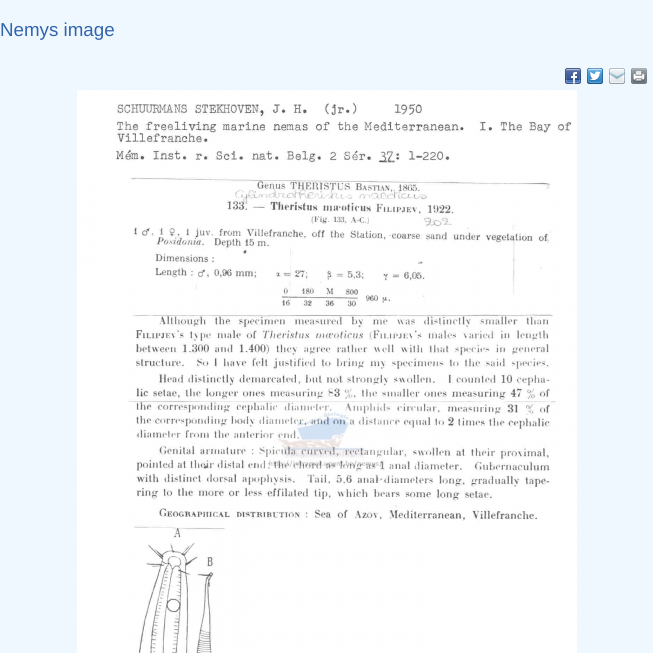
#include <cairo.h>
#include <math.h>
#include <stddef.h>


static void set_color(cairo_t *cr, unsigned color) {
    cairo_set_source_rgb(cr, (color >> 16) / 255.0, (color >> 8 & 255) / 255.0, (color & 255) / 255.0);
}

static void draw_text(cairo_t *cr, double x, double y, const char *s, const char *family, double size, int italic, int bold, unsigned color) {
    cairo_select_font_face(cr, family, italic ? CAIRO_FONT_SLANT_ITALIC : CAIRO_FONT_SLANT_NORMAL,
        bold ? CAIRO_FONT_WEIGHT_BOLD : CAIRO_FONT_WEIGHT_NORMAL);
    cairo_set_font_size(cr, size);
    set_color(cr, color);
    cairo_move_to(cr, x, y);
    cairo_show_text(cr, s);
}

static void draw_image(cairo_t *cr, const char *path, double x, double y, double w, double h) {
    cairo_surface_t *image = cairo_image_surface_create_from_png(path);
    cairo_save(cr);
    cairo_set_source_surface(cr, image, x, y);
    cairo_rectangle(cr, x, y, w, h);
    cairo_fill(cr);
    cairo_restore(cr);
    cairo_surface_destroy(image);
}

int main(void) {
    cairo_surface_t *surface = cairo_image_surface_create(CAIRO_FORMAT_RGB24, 653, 653);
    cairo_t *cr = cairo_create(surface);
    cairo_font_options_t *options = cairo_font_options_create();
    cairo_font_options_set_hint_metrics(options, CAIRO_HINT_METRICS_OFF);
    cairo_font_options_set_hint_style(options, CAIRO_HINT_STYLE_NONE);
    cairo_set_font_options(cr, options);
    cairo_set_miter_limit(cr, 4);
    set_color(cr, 0xF0F8FF);
    cairo_paint(cr);
    draw_text(cr, 0, 36, "Nemys image", "Liberation Sans", 18.75, 0, 0, 0x3264AE);
    draw_image(cr, "assets/img1.png", 565, 68, 16, 16);
    draw_image(cr, "assets/img2.png", 587, 68, 16, 16);
    draw_image(cr, "assets/img3.png", 609, 68, 16, 16);
    draw_image(cr, "assets/img4.png", 631, 68, 16, 16);
    draw_image(cr, "assets/img5.png", 77, 90, 500, 563);
    cairo_surface_write_to_png(surface, "output.png");
    cairo_font_options_destroy(options);
    cairo_destroy(cr);
    cairo_surface_destroy(surface);
    return 0;
}
